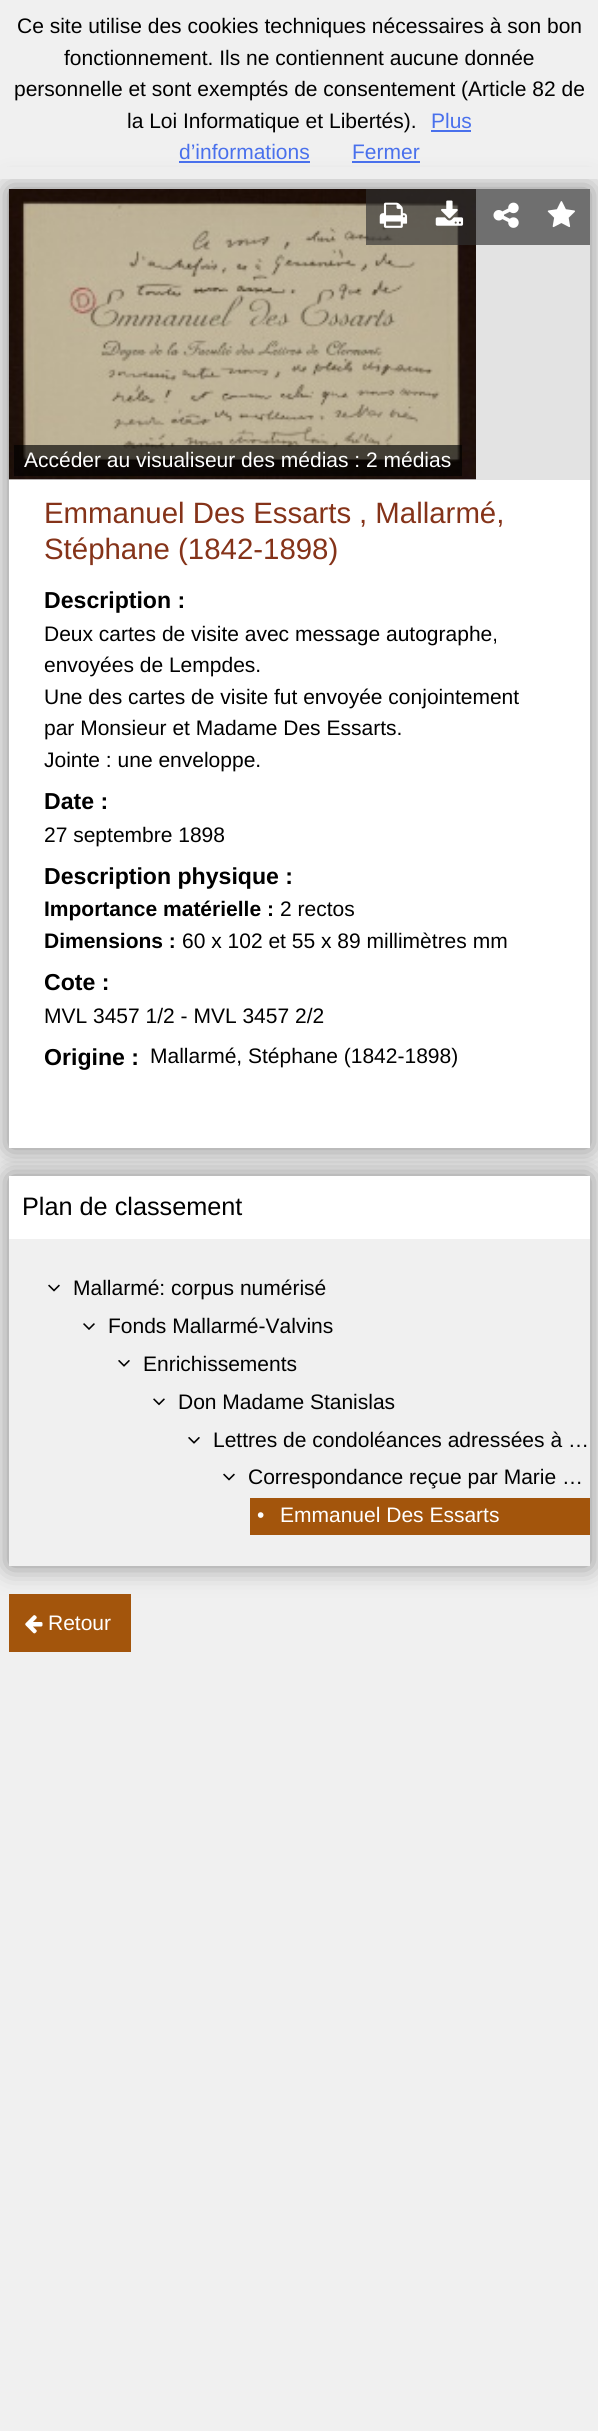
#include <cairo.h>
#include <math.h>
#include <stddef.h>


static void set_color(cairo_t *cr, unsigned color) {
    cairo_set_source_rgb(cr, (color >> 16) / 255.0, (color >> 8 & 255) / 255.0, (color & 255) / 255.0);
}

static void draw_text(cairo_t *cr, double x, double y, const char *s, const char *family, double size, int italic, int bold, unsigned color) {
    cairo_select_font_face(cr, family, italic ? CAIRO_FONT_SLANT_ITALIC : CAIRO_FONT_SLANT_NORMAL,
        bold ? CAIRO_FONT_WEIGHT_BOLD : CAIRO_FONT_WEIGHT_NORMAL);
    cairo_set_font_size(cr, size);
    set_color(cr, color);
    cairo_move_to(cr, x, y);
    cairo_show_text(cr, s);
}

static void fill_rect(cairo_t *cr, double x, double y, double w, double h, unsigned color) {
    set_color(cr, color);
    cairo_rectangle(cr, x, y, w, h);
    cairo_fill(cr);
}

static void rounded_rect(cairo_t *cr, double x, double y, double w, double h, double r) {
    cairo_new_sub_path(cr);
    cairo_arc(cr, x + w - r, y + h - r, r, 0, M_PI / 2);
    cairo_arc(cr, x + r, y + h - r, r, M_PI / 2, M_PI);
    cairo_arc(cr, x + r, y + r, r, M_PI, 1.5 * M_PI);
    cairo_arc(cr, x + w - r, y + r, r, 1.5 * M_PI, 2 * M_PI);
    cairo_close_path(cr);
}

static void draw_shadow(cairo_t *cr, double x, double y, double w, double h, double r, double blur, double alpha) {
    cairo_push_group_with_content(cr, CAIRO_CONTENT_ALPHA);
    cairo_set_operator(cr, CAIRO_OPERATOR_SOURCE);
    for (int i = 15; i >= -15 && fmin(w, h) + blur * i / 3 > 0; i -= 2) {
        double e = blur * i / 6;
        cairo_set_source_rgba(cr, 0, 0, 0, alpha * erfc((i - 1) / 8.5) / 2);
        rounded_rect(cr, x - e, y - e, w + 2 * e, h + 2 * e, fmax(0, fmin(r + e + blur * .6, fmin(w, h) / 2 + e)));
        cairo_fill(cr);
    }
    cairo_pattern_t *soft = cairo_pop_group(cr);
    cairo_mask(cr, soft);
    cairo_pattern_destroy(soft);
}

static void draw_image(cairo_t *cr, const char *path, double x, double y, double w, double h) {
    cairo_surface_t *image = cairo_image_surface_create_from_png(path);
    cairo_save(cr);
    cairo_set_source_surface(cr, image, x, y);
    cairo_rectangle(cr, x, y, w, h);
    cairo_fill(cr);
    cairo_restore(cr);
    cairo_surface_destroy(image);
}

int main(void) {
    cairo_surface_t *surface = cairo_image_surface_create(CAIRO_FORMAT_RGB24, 598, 2431);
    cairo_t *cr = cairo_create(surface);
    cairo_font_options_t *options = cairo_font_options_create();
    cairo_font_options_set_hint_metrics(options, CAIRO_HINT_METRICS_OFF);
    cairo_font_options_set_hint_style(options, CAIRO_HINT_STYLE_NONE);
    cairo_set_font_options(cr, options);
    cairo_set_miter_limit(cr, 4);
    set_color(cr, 0xF0F0F0);
    cairo_paint(cr);
    fill_rect(cr, 9, 1594, 122, 58, 0xA3550C);
    set_color(cr, 0x888888);
    draw_shadow(cr, 9, 1176, 581, 390, 0, 13, 1);
    fill_rect(cr, 9, 1176, 581, 63, 0xFFFFFF);
    set_color(cr, 0x888888);
    draw_shadow(cr, 9, 189, 581, 959, 0, 13, 1);
    fill_rect(cr, 0, 167, 598, 12, 0xEEEEEE);
    draw_text(cr, 17, 33, "Ce site utilise des cookies techniques nécessaires à son bon", "Liberation Sans", 21, 0, 0, 0x000000);
    draw_text(cr, 64, 65, "fonctionnement. Ils ne contiennent aucune donnée", "Liberation Sans", 21, 0, 0, 0x000000);
    draw_text(cr, 14, 96, "personnelle et sont exemptés de consentement (Article 82 de", "Liberation Sans", 21, 0, 0, 0x000000);
    draw_text(cr, 127, 128, "la Loi Informatique et Libertés).", "Liberation Sans", 21, 0, 0, 0x000000);
    draw_text(cr, 431, 128, "Plus", "Liberation Sans", 21, 0, 0, 0x4970EC);
    fill_rect(cr, 431, 130, 40, 2, 0x4970EC);
    draw_text(cr, 179, 159, "d’informations", "Liberation Sans", 21, 0, 0, 0x4970EC);
    fill_rect(cr, 179, 161, 131, 2, 0x4970EC);
    draw_text(cr, 352, 159, "Fermer", "Liberation Sans", 21, 0, 0, 0x4970EC);
    fill_rect(cr, 352, 161, 68, 2, 0x4970EC);
    fill_rect(cr, 9, 480, 581, 668, 0xFFFFFF);
    fill_rect(cr, 9, 189, 581, 291, 0xE3E3E3);
    draw_image(cr, "assets/img5.png", 8, 189, 468, 291);
    cairo_set_source_rgba(cr, 0.192, 0.192, 0.192, 0.65);
    cairo_rectangle(cr, 366, 189, 56, 56);
    cairo_fill(cr);
    draw_image(cr, "assets/img1.png", 379, 202, 29, 26);
    cairo_rectangle(cr, 422, 189, 56, 56);
    cairo_fill(cr);
    draw_image(cr, "assets/img2.png", 435, 200, 29, 26);
    fill_rect(cr, 478, 189, 112, 56, 0x6F6F6F);
    draw_image(cr, "assets/img3.png", 547, 201, 28, 27);
    draw_image(cr, "assets/img4.png", 493, 202, 26, 26);
    cairo_set_source_rgba(cr, 0, 0, 0, 0.65);
    cairo_rectangle(cr, 14, 445, 448, 31);
    cairo_fill(cr);
    draw_text(cr, 24, 467, "Accéder au visualiseur des médias : 2 médias", "Liberation Sans", 21, 0, 0, 0xFFFFFF);
    draw_text(cr, 44, 523, "Emmanuel Des Essarts", "Liberation Sans", 29.4, 0, 0, 0x853319);
    draw_text(cr, 359, 523, ", Mallarmé,", "Liberation Sans", 29.4, 0, 0, 0x853319);
    draw_text(cr, 44, 559, "Stéphane (1842-1898)", "Liberation Sans", 29.4, 0, 0, 0x853319);
    draw_text(cr, 44, 608, "Description :", "Liberation Sans", 23.1, 0, 1, 0x000000);
    draw_text(cr, 44, 641, "Deux cartes de visite avec message autographe,", "Liberation Sans", 21, 0, 0, 0x000000);
    draw_text(cr, 44, 672, "envoyées de Lempdes.", "Liberation Sans", 21, 0, 0, 0x000000);
    draw_text(cr, 44, 704, "Une des cartes de visite fut envoyée conjointement", "Liberation Sans", 21, 0, 0, 0x000000);
    draw_text(cr, 44, 735, "par Monsieur et Madame Des Essarts.", "Liberation Sans", 21, 0, 0, 0x000000);
    draw_text(cr, 44, 767, "Jointe : une enveloppe.", "Liberation Sans", 21, 0, 0, 0x000000);
    draw_text(cr, 44, 809, "Date :", "Liberation Sans", 23.1, 0, 1, 0x000000);
    draw_text(cr, 44, 842, "27 septembre 1898", "Liberation Sans", 21, 0, 0, 0x000000);
    draw_text(cr, 44, 884, "Description physique :", "Liberation Sans", 23.1, 0, 1, 0x000000);
    draw_text(cr, 44, 916, "Importance matérielle :", "Liberation Sans", 21, 0, 1, 0x000000);
    draw_text(cr, 280, 916, "2 rectos", "Liberation Sans", 21, 0, 0, 0x000000);
    draw_text(cr, 44, 948, "Dimensions :", "Liberation Sans", 21, 0, 1, 0x000000);
    draw_text(cr, 182, 948, "60 x 102 et 55 x 89 millimètres mm", "Liberation Sans", 21, 0, 0, 0x000000);
    draw_text(cr, 44, 990, "Cote :", "Liberation Sans", 23.1, 0, 1, 0x000000);
    draw_text(cr, 44, 1023, "MVL 3457 1/2 - MVL 3457 2/2", "Liberation Sans", 21, 0, 0, 0x000000);
    draw_text(cr, 44, 1065, "Origine :", "Liberation Sans", 23.1, 0, 1, 0x000000);
    draw_text(cr, 150, 1063, "Mallarmé, Stéphane (1842-1898)", "Liberation Sans", 21, 0, 0, 0x000000);
    draw_text(cr, 22, 1215, "Plan de classement", "Liberation Sans", 25.25, 0, 0, 0x000000);
    fill_rect(cr, 9, 1239, 581, 327, 0xF0F0F0);
    draw_image(cr, "assets/img6.png", 48, 1284, 12, 8);
    draw_text(cr, 73, 1295, "Mallarmé: corpus numérisé", "Liberation Sans", 21, 0, 0, 0x000000);
    draw_image(cr, "assets/img7.png", 83, 1323, 12, 7);
    draw_text(cr, 108, 1333, "Fonds Mallarmé-Valvins", "Liberation Sans", 21, 0, 0, 0x000000);
    draw_image(cr, "assets/img8.png", 118, 1360, 12, 7);
    draw_text(cr, 143, 1371, "Enrichissements", "Liberation Sans", 21, 0, 0, 0x000000);
    draw_image(cr, "assets/img9.png", 153, 1398, 12, 8);
    draw_text(cr, 178, 1409, "Don Madame Stanislas", "Liberation Sans", 21, 0, 0, 0x000000);
    draw_image(cr, "assets/img8.png", 188, 1437, 12, 7);
    draw_text(cr, 213, 1447, "Lettres de condoléances adressées à …", "Liberation Sans", 21, 0, 0, 0x000000);
    draw_image(cr, "assets/img6.png", 223, 1473, 12, 8);
    draw_text(cr, 248, 1484, "Correspondance reçue par Marie …", "Liberation Sans", 21, 0, 0, 0x000000);
    fill_rect(cr, 250, 1498, 340, 37, 0xA3550C);
    draw_text(cr, 257, 1522, "•", "Liberation Sans", 21, 0, 0, 0xFFFFFF);
    draw_text(cr, 280, 1522, "Emmanuel Des Essarts", "Liberation Sans", 21, 0, 0, 0xFFFFFF);
    draw_image(cr, "assets/img10.png", 25, 1615, 18, 19);
    draw_text(cr, 48, 1630, "Retour", "Liberation Sans", 21, 0, 0, 0xFFFFFF);
    cairo_surface_write_to_png(surface, "output.png");
    cairo_font_options_destroy(options);
    cairo_destroy(cr);
    cairo_surface_destroy(surface);
    return 0;
}
